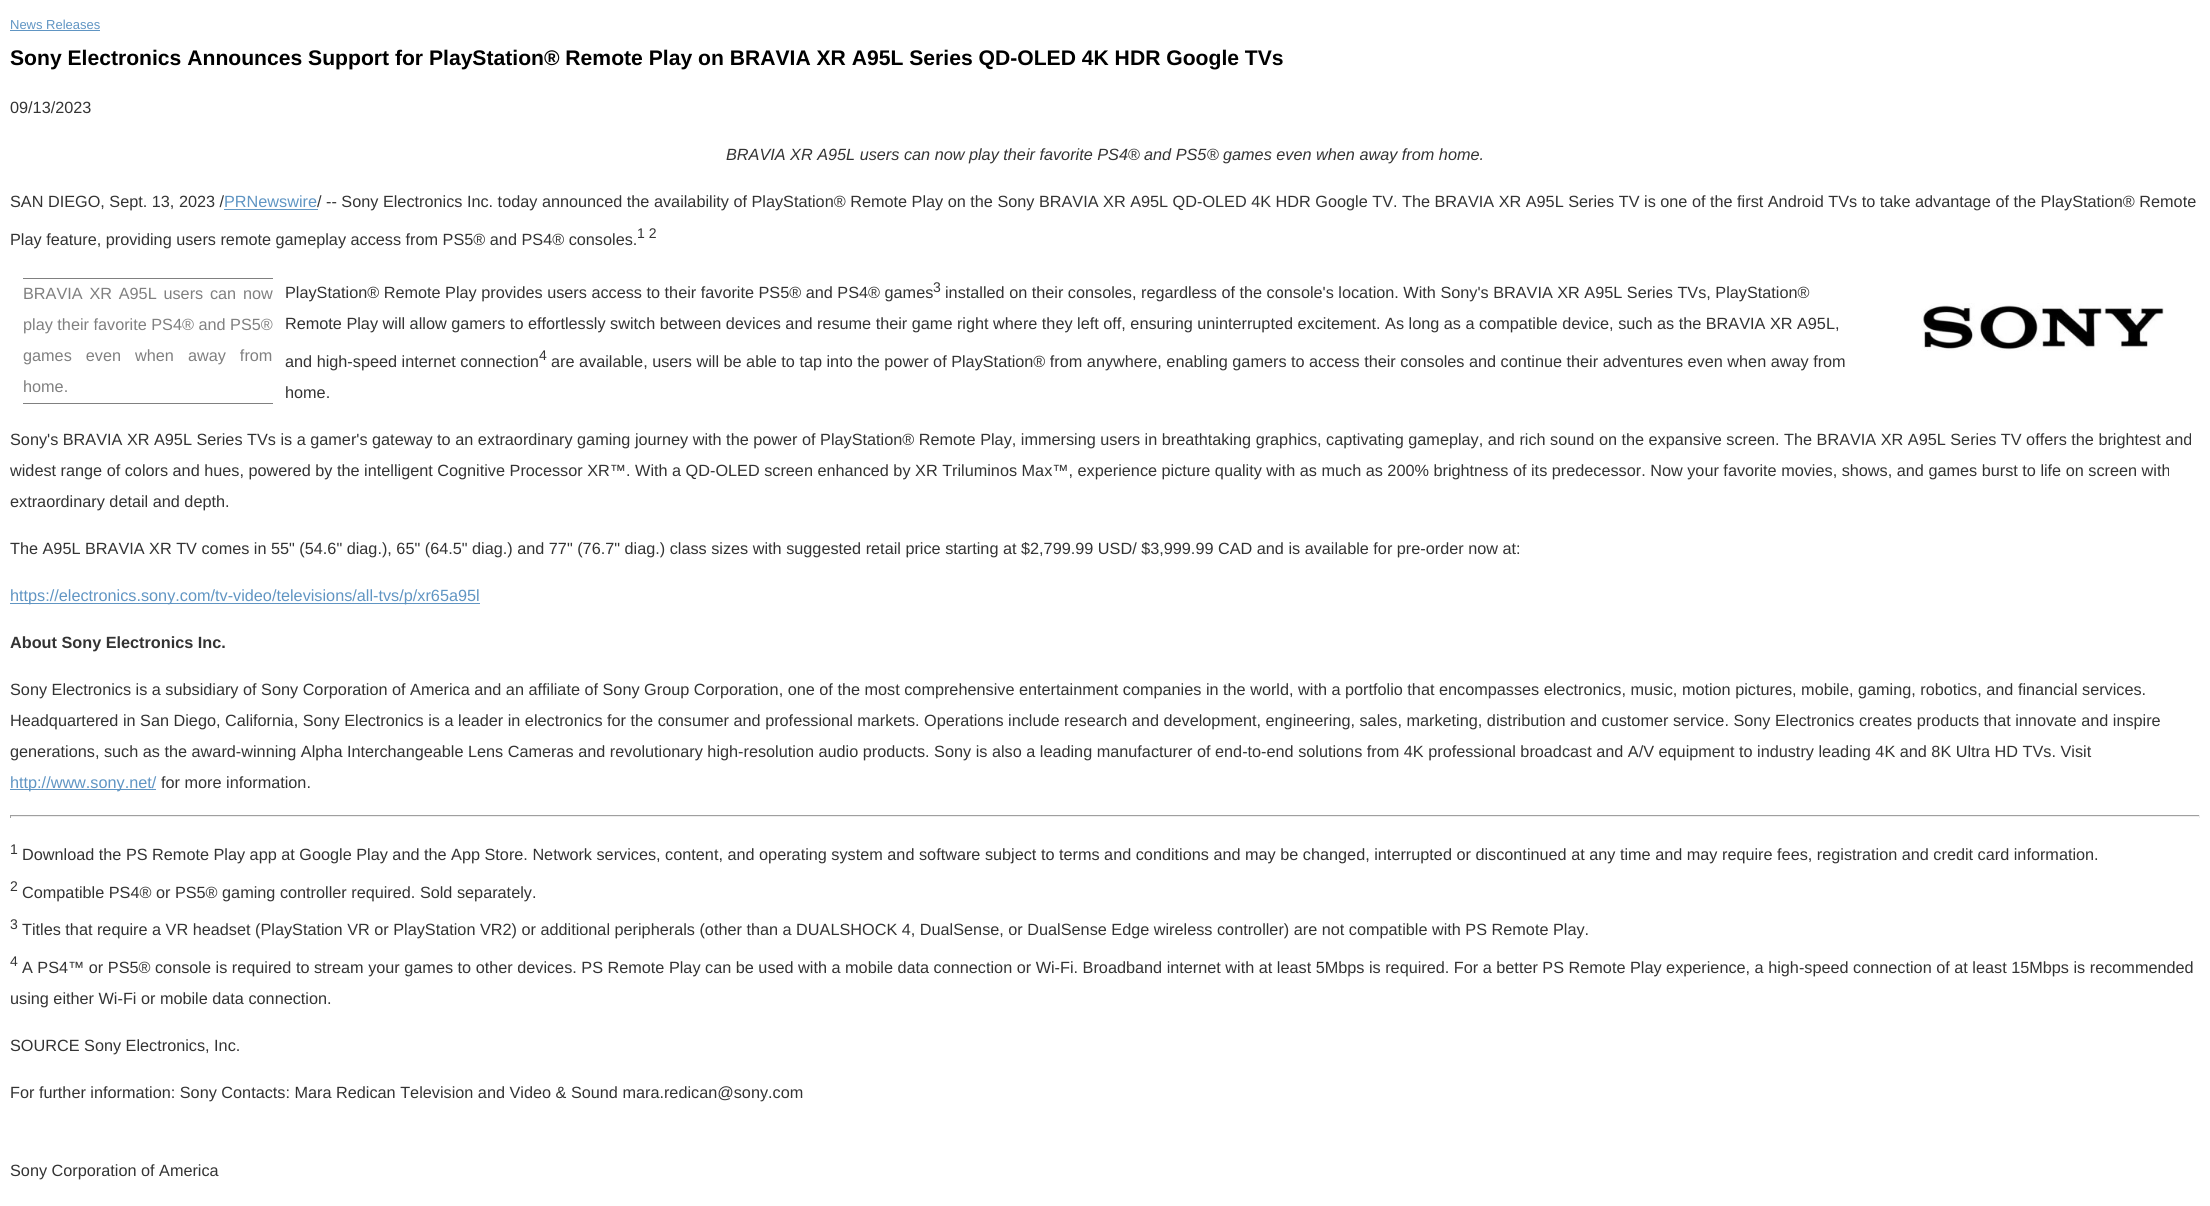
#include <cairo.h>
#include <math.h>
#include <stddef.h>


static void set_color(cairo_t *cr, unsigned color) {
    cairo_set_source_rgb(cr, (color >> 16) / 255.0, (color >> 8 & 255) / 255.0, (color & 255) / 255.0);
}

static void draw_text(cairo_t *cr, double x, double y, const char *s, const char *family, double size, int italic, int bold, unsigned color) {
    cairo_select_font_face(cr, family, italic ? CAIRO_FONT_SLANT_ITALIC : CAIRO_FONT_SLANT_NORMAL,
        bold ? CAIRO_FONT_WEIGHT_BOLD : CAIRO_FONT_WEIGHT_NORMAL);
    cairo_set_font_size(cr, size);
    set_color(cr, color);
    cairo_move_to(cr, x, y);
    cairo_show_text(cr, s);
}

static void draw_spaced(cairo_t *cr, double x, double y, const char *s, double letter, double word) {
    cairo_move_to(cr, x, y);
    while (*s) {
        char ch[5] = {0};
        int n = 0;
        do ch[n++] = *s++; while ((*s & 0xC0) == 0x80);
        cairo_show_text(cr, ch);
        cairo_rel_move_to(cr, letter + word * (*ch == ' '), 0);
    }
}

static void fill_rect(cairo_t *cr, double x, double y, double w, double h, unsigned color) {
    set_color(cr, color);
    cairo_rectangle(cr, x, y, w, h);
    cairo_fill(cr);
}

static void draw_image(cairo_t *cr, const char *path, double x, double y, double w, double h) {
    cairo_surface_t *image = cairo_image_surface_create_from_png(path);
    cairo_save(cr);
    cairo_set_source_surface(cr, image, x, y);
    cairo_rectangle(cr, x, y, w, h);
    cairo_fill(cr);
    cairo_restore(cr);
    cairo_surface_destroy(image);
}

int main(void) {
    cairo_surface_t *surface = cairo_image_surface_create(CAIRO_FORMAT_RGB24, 2210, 1206);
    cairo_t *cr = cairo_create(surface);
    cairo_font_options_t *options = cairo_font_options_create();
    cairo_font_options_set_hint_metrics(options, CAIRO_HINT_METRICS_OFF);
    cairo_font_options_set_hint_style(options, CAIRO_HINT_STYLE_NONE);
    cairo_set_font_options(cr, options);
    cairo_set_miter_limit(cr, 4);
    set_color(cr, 0xFFFFFF);
    cairo_paint(cr);
    draw_text(cr, 10, 29, "News Releases", "Liberation Sans", 13, 0, 0, 0x6095C3);
    fill_rect(cr, 10, 30, 90, 1, 0x6095C3);
    draw_text(cr, 10, 65, "Sony Electronics Announces Support for PlayStation® Remote Play on BRAVIA XR A95L Series QD-OLED 4K HDR Google TVs", "Liberation Sans", 21.12, 0, 1, 0x000000);
    draw_text(cr, 10, 113, "09/13/2023", "Liberation Sans", 16.25, 0, 0, 0x333333);
    draw_text(cr, 726, 160, "BRAVIA XR A95L users can now play their favorite PS4", "Liberation Sans", 16.25, 1, 0, 0x333333);
    draw_text(cr, 1128, 160, "®", "Liberation Sans", 16.25, 0, 0, 0x333333);
    draw_text(cr, 1144, 160, "and PS5", "Liberation Sans", 16.25, 1, 0, 0x333333);
    draw_text(cr, 1207, 160, "®", "Liberation Sans", 16.25, 0, 0, 0x333333);
    draw_text(cr, 1223, 160, "games even when away from home.", "Liberation Sans", 16.25, 1, 0, 0x333333);
    draw_text(cr, 10, 207, "SAN DIEGO, Sept. 13, 2023 /", "Liberation Sans", 16.25, 0, 0, 0x333333);
    draw_text(cr, 224, 207, "PRNewswire", "Liberation Sans", 16.25, 0, 0, 0x6095C3);
    fill_rect(cr, 224, 209, 94, 1, 0x6095C3);
    draw_text(cr, 317, 207, "/ -- Sony Electronics Inc. today announced the availability of PlayStation® Remote Play on the Sony BRAVIA XR A95L QD-OLED 4K HDR Google TV. The BRAVIA XR A95L Series TV is one of the first Android TVs to take advantage of the PlayStation® Remote", "Liberation Sans", 16.25, 0, 0, 0x333333);
    draw_text(cr, 10, 245, "Play feature, providing users remote gameplay access from PS5® and PS4® consoles.", "Liberation Sans", 16.25, 0, 0, 0x333333);
    draw_text(cr, 637, 238, "1 2", "Liberation Sans", 14, 0, 0, 0x333333);
    fill_rect(cr, 23, 278, 250, 1, 0x808080);
    fill_rect(cr, 23, 403, 250, 1, 0x808080);
    cairo_set_font_size(cr, 16.25);
    draw_spaced(cr, 23, 299, "BRAVIA XR A95L users can now", 0, 2.25);
    draw_text(cr, 23, 330, "play their favorite PS4® and PS5®", "Liberation Sans", 16.25, 0, 0, 0x808080);
    draw_spaced(cr, 23, 361, "games even when away from", 0, 9.5);
    draw_text(cr, 23, 392, "home.", "Liberation Sans", 16.25, 0, 0, 0x808080);
    draw_text(cr, 285, 298, "PlayStation® Remote Play provides users access to their favorite PS5® and PS4® games", "Liberation Sans", 16.25, 0, 0, 0x333333);
    draw_text(cr, 933, 292, "3", "Liberation Sans", 14, 0, 0, 0x333333);
    draw_text(cr, 945, 298, "installed on their consoles, regardless of the console's location. With Sony's BRAVIA XR A95L Series TVs, PlayStation®", "Liberation Sans", 16.25, 0, 0, 0x333333);
    draw_text(cr, 285, 329, "Remote Play will allow gamers to effortlessly switch between devices and resume their game right where they left off, ensuring uninterrupted excitement. As long as a compatible device, such as the BRAVIA XR A95L,", "Liberation Sans", 16.25, 0, 0, 0x333333);
    draw_text(cr, 285, 367, "and high-speed internet connection", "Liberation Sans", 16.25, 0, 0, 0x333333);
    draw_text(cr, 539, 360, "4", "Liberation Sans", 14, 0, 0, 0x333333);
    draw_text(cr, 551, 367, "are available, users will be able to tap into the power of PlayStation® from anywhere, enabling gamers to access their consoles and continue their adventures even when away from", "Liberation Sans", 16.25, 0, 0, 0x333333);
    draw_text(cr, 285, 398, "home.", "Liberation Sans", 16.25, 0, 0, 0x333333);
    draw_image(cr, "assets/img1.png", 1921, 303, 243, 48);
    draw_text(cr, 10, 445, "Sony's BRAVIA XR A95L Series TVs is a gamer's gateway to an extraordinary gaming journey with the power of PlayStation® Remote Play, immersing users in breathtaking graphics, captivating gameplay, and rich sound on the expansive screen. The BRAVIA XR A95L Series TV offers the brightest and", "Liberation Sans", 16.25, 0, 0, 0x333333);
    draw_text(cr, 10, 476, "widest range of colors and hues, powered by the intelligent Cognitive Processor XR™. With a QD-OLED screen enhanced by XR Triluminos Max™, experience picture quality with as much as 200% brightness of its predecessor. Now your favorite movies, shows, and games burst to life on screen with", "Liberation Sans", 16.25, 0, 0, 0x333333);
    draw_text(cr, 10, 507, "extraordinary detail and depth.", "Liberation Sans", 16.25, 0, 0, 0x333333);
    draw_text(cr, 10, 554, "The A95L BRAVIA XR TV comes in 55\" (54.6\" diag.), 65\" (64.5\" diag.) and 77\" (76.7\" diag.) class sizes with suggested retail price starting at $2,799.99 USD/ $3,999.99 CAD and is available for pre-order now at:", "Liberation Sans", 16.25, 0, 0, 0x333333);
    fill_rect(cr, 10, 603, 470, 1, 0x6095C3);
    draw_text(cr, 10, 601, "https://electronics.sony.com/tv-video/televisions/all-tvs/p/xr65a95l", "Liberation Sans", 16.25, 0, 0, 0x6095C3);
    draw_text(cr, 10, 648, "About Sony Electronics Inc.", "Liberation Sans", 16.25, 0, 1, 0x333333);
    draw_text(cr, 10, 695, "Sony Electronics is a subsidiary of Sony Corporation of America and an affiliate of Sony Group Corporation, one of the most comprehensive entertainment companies in the world, with a portfolio that encompasses electronics, music, motion pictures, mobile, gaming, robotics, and financial services.", "Liberation Sans", 16.25, 0, 0, 0x333333);
    draw_text(cr, 10, 726, "Headquartered in San Diego, California, Sony Electronics is a leader in electronics for the consumer and professional markets. Operations include research and development, engineering, sales, marketing, distribution and customer service. Sony Electronics creates products that innovate and inspire", "Liberation Sans", 16.25, 0, 0, 0x333333);
    draw_text(cr, 10, 757, "generations, such as the award-winning Alpha Interchangeable Lens Cameras and revolutionary high-resolution audio products. Sony is also a leading manufacturer of end-to-end solutions from 4K professional broadcast and A/V equipment to industry leading 4K and 8K Ultra HD TVs. Visit", "Liberation Sans", 16.25, 0, 0, 0x333333);
    fill_rect(cr, 10, 789, 146, 1, 0x6095C3);
    draw_text(cr, 10, 788, "http://www.sony.net/", "Liberation Sans", 16.25, 0, 0, 0x6095C3);
    draw_text(cr, 161, 788, "for more information.", "Liberation Sans", 16.25, 0, 0, 0x333333);
    fill_rect(cr, 10, 815, 2190, 1, 0x9F9F9F);
    fill_rect(cr, 2199, 815, 1, 3, 0xEEEEEE);
    fill_rect(cr, 10, 816, 2190, 1, 0xEEEEEE);
    fill_rect(cr, 10, 815, 1, 3, 0x9F9F9F);
    draw_text(cr, 10, 854, "1", "Liberation Sans", 14, 0, 0, 0x333333);
    draw_text(cr, 22, 860, "Download the PS Remote Play app at Google Play and the App Store. Network services, content, and operating system and software subject to terms and conditions and may be changed, interrupted or discontinued at any time and may require fees, registration and credit card information.", "Liberation Sans", 16.25, 0, 0, 0x333333);
    draw_text(cr, 10, 891, "2", "Liberation Sans", 14, 0, 0, 0x333333);
    draw_text(cr, 22, 898, "Compatible PS4® or PS5® gaming controller required. Sold separately.", "Liberation Sans", 16.25, 0, 0, 0x333333);
    draw_text(cr, 10, 929, "3", "Liberation Sans", 14, 0, 0, 0x333333);
    draw_text(cr, 22, 935, "Titles that require a VR headset (PlayStation VR or PlayStation VR2) or additional peripherals (other than a DUALSHOCK 4, DualSense, or DualSense Edge wireless controller) are not compatible with PS Remote Play.", "Liberation Sans", 16.25, 0, 0, 0x333333);
    draw_text(cr, 10, 966, "4", "Liberation Sans", 14, 0, 0, 0x333333);
    draw_text(cr, 22, 973, "A PS4™ or PS5® console is required to stream your games to other devices. PS Remote Play can be used with a mobile data connection or Wi-Fi. Broadband internet with at least 5Mbps is required. For a better PS Remote Play experience, a high-speed connection of at least 15Mbps is recommended", "Liberation Sans", 16.25, 0, 0, 0x333333);
    draw_text(cr, 10, 1004, "using either Wi-Fi or mobile data connection.", "Liberation Sans", 16.25, 0, 0, 0x333333);
    draw_text(cr, 10, 1051, "SOURCE Sony Electronics, Inc.", "Liberation Sans", 16.25, 0, 0, 0x333333);
    draw_text(cr, 10, 1098, "For further information: Sony Contacts: Mara Redican Television and Video & Sound mara.redican@sony.com", "Liberation Sans", 16.25, 0, 0, 0x333333);
    draw_text(cr, 10, 1176, "Sony Corporation of America", "Liberation Sans", 16.25, 0, 0, 0x333333);
    cairo_surface_write_to_png(surface, "output.png");
    cairo_font_options_destroy(options);
    cairo_destroy(cr);
    cairo_surface_destroy(surface);
    return 0;
}
